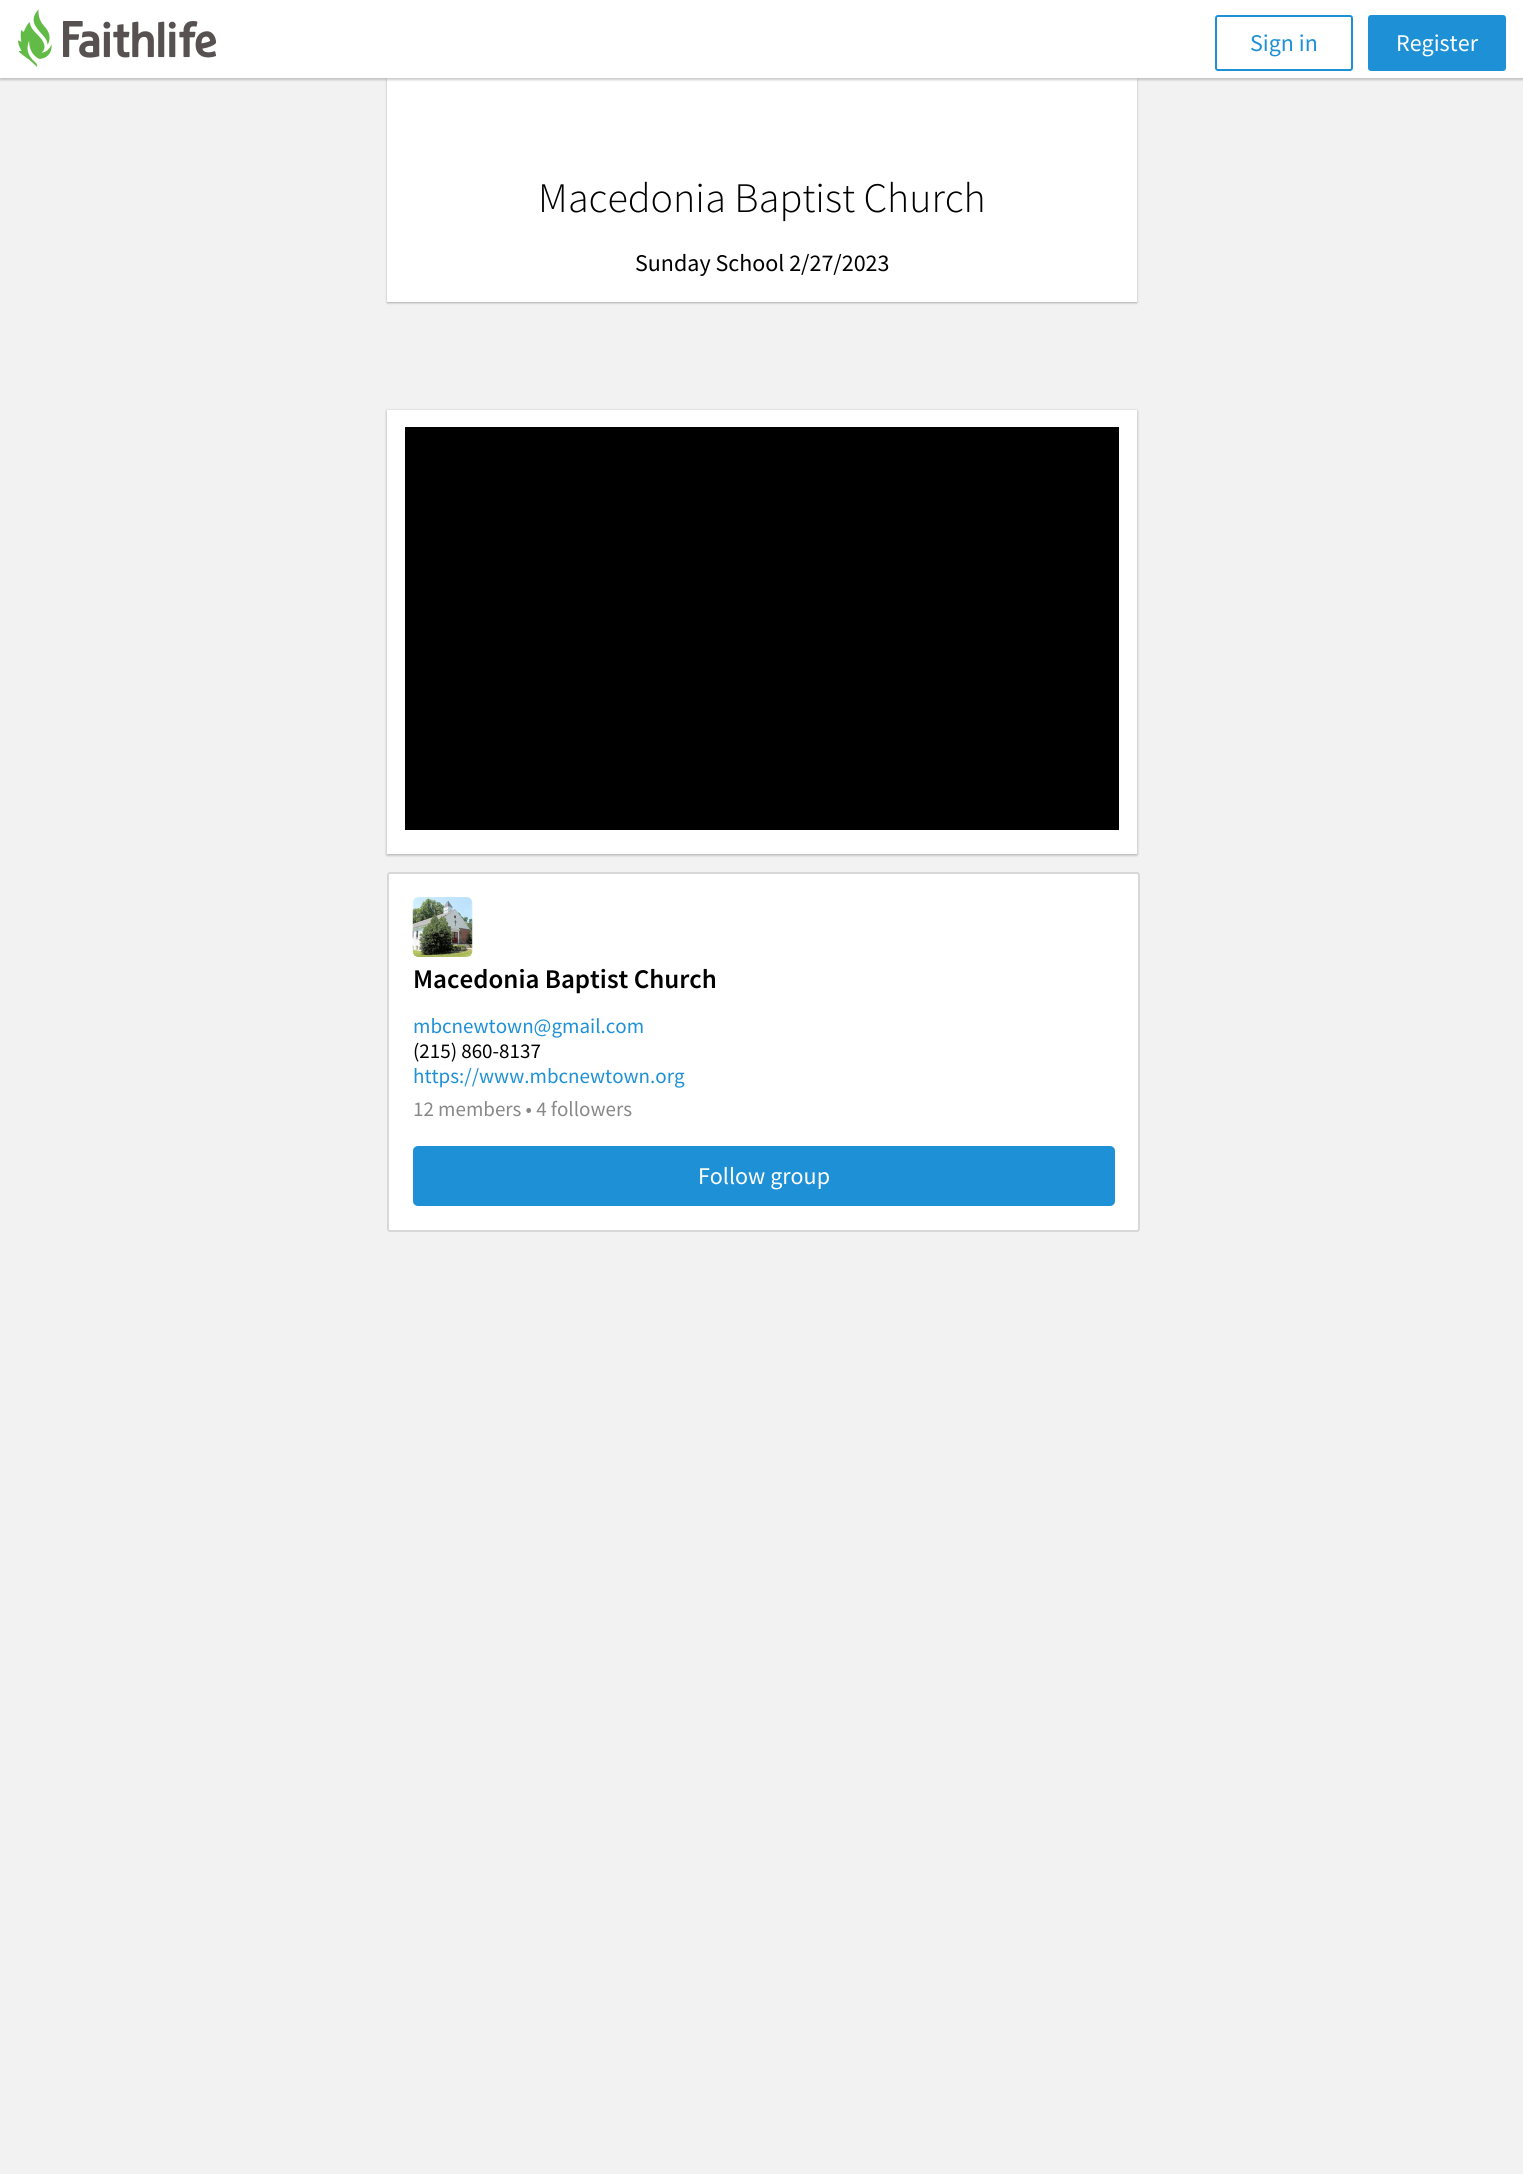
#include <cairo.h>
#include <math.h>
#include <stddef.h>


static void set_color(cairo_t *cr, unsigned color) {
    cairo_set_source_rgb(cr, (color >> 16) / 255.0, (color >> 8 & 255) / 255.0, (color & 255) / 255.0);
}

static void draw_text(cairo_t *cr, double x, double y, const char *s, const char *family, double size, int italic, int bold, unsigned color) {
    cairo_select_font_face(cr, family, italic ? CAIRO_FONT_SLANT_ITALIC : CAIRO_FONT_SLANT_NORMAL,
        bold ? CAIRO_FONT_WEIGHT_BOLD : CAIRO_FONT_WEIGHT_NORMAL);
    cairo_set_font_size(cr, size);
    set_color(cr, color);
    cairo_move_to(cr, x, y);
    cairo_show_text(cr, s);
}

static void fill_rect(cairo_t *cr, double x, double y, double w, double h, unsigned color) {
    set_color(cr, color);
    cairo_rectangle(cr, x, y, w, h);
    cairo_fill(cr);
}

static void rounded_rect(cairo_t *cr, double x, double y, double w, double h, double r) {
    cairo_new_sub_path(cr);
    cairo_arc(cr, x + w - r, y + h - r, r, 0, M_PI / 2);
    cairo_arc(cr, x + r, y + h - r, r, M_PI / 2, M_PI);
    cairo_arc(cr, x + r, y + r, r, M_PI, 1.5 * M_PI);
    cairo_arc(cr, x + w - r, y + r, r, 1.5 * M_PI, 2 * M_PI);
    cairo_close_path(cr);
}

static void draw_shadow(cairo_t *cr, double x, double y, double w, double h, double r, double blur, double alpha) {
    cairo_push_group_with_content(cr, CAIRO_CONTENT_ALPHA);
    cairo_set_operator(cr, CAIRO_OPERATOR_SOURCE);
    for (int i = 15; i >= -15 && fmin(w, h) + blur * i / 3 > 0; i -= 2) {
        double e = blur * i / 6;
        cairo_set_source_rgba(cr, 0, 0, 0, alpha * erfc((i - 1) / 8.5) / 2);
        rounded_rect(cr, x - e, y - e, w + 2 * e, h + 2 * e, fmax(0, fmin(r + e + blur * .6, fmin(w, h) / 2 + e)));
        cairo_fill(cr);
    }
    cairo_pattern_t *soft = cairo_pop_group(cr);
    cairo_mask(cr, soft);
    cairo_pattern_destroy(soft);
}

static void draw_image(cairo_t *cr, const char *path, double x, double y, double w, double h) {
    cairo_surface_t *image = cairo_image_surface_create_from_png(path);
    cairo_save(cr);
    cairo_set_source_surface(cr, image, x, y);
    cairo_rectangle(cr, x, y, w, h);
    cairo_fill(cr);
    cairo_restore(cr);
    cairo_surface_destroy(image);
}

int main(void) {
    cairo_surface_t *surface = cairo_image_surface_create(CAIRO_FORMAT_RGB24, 1523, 2174);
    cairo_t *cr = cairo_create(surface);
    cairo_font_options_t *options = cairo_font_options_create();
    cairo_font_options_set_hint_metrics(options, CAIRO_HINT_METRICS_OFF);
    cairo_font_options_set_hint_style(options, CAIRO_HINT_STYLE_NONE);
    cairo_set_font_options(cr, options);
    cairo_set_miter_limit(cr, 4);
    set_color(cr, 0xF2F2F2);
    cairo_paint(cr);
    set_color(cr, 0x9C9C9C);
    draw_shadow(cr, 387, 80, 750, 223, 0, 1, 0.8);
    fill_rect(cr, 387, 78, 750, 224, 0xFFFFFF);
    set_color(cr, 0x000000);
    draw_shadow(cr, 0, 2, 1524, 78, 0, 1, 0.2);
    fill_rect(cr, 0, 0, 1523, 78, 0xFFFFFF);
    draw_image(cr, "assets/img1.png", 18, 9, 199, 58);
    rounded_rect(cr, 1216, 16, 136, 54, 2);
    set_color(cr, 0x1E91D6);
    cairo_stroke(cr);
    draw_text(cr, 1250, 51, "Sign in", "Source Sans Pro", 24, 0, 0, 0x1E91D6);
    rounded_rect(cr, 1369, 16, 136, 54, 2);
    cairo_fill_preserve(cr);
    cairo_stroke(cr);
    draw_text(cr, 1396, 51, "Register", "Source Sans Pro", 24, 0, 0, 0xFFFFFF);
    draw_text(cr, 538, 212, "Macedonia Baptist Church", "Source Sans Pro Light", 42, 0, 0, 0x000000);
    draw_text(cr, 635, 271, "Sunday School 2/27/2023", "Source Sans Pro", 24, 0, 0, 0x000000);
    set_color(cr, 0x000000);
    draw_shadow(cr, 387, 411, 750, 444, 0, 1.5, 0.32);
    fill_rect(cr, 387, 410, 750, 444, 0xFFFFFF);
    fill_rect(cr, 405, 427, 714, 403, 0x000000);
    set_color(cr, 0xFFFFFF);
    rounded_rect(cr, 388, 873, 751, 358, 2);
    cairo_fill_preserve(cr);
    set_color(cr, 0xD8D8D8);
    cairo_stroke(cr);
    draw_image(cr, "assets/img2.png", 412, 897, 61, 60);
    draw_text(cr, 413, 988, "Macedonia Baptist Church", "Source Sans Pro SemiBold", 27, 0, 0, 0x000000);
    draw_text(cr, 413, 1033, "mbcnewtown@gmail.com", "Source Sans Pro", 21, 0, 0, 0x1E91D6);
    draw_text(cr, 413, 1058, "(215) 860-8137", "Source Sans Pro", 21, 0, 0, 0x000000);
    draw_text(cr, 413, 1083, "https://www.mbcnewtown.org", "Source Sans Pro", 21, 0, 0, 0x1E91D6);
    draw_text(cr, 413, 1116, "12 members • 4 followers", "Source Sans Pro", 21, 0, 0, 0x888888);
    set_color(cr, 0x1E91D6);
    rounded_rect(cr, 413, 1146, 702, 60, 5);
    cairo_fill(cr);
    draw_text(cr, 698, 1184, "Follow group", "Source Sans Pro", 24, 0, 0, 0xFFFFFF);
    cairo_surface_write_to_png(surface, "output.png");
    cairo_font_options_destroy(options);
    cairo_destroy(cr);
    cairo_surface_destroy(surface);
    return 0;
}
